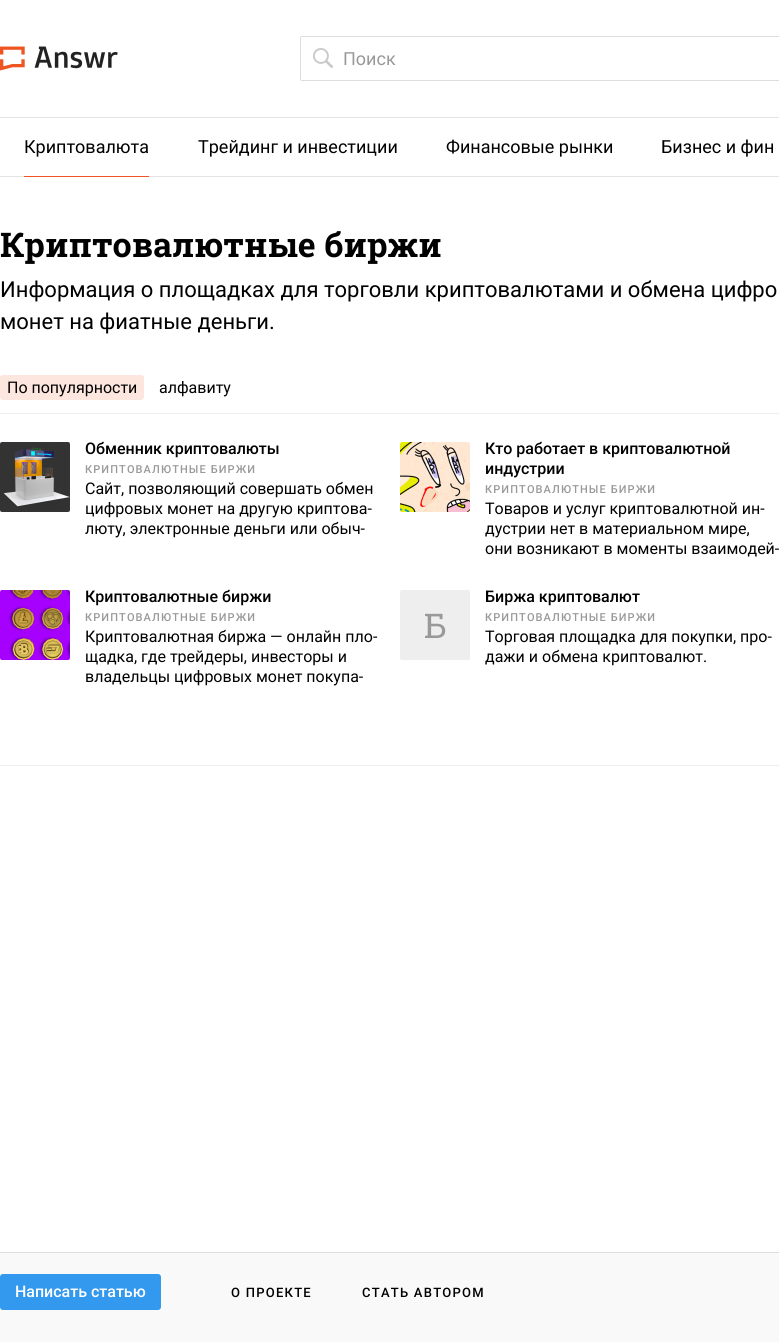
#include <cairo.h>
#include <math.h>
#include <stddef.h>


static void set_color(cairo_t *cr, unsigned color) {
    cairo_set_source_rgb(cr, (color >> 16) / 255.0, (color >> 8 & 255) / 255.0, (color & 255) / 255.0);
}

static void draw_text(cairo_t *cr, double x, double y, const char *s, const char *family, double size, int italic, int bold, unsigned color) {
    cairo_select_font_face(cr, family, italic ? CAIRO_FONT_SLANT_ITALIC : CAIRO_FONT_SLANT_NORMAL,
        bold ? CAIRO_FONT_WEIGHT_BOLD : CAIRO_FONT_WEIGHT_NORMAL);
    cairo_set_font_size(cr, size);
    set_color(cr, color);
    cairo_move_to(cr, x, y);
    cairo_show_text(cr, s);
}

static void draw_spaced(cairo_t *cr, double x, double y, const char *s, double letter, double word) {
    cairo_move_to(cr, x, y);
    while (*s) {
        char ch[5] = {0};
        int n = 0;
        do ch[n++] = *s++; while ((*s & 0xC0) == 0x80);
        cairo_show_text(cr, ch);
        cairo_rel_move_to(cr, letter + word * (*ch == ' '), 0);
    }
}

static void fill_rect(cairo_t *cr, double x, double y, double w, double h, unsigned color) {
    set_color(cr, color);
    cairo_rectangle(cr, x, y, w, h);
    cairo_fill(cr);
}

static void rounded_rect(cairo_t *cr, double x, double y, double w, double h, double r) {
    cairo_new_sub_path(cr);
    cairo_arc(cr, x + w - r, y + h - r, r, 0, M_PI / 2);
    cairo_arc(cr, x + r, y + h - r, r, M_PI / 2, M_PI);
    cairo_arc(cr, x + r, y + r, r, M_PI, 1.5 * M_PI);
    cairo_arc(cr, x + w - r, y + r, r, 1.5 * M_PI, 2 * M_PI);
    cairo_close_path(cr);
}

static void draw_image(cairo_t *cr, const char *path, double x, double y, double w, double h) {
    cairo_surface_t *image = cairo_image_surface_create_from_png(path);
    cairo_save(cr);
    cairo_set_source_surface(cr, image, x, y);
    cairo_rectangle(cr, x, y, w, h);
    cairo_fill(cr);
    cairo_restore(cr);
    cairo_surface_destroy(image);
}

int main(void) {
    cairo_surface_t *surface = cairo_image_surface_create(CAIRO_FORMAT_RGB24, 779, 1342);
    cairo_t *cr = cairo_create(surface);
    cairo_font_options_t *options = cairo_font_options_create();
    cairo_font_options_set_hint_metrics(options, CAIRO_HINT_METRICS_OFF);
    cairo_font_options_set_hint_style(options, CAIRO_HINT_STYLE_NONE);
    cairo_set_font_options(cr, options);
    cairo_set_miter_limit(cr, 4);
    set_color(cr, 0xFFFFFF);
    cairo_paint(cr);
    fill_rect(cr, 0, 117, 779, 1, 0xE4E4E4);
    draw_image(cr, "assets/img1.png", 0, 46, 118, 25);
    draw_image(cr, "assets/img2.png", 313, 48, 20, 20);
    rounded_rect(cr, 300.5, 36.5, 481, 44, 1.5);
    set_color(cr, 0xDDDDDD);
    cairo_set_line_width(cr, 1);
    cairo_stroke(cr);
    draw_text(cr, 343, 65, "Поиск", "Roboto", 18, 0, 0, 0x999999);
    fill_rect(cr, 0, 176, 779, 1, 0xE4E4E4);
    draw_text(cr, 24, 153, "Криптовалюта", "Roboto", 18, 0, 0, 0x000000);
    fill_rect(cr, 24, 176, 125, 1, 0xEE5522);
    draw_text(cr, 198, 153, "Трейдинг и инвестиции", "Roboto", 18, 0, 0, 0x000000);
    draw_text(cr, 446, 153, "Финансовые рынки", "Roboto", 18, 0, 0, 0x000000);
    draw_text(cr, 661, 153, "Бизнес и фин", "Roboto", 18, 0, 0, 0x000000);
    fill_rect(cr, 0, 413, 779, 1, 0xEEEEEE);
    draw_text(cr, 0, 257, "Криптовалютные биржи", "Roboto Slab", 34, 0, 1, 0x000000);
    draw_text(cr, 0, 297, "Информация о площадках для торговли криптовалютами и обмена цифро", "Roboto", 22, 0, 0, 0x000000);
    draw_text(cr, 0, 329, "монет на фиатные деньги.", "Roboto", 22, 0, 0, 0x000000);
    set_color(cr, 0xFCE6DE);
    rounded_rect(cr, 0, 375, 144, 25, 3);
    cairo_fill(cr);
    draw_text(cr, 7, 393, "По популярности", "Roboto", 16, 0, 0, 0x000000);
    draw_text(cr, 159, 393, "алфавиту", "Roboto", 16, 0, 0, 0x000000);
    draw_image(cr, "assets/img3.png", 0, 442, 70, 70);
    draw_text(cr, 85, 454, "Обменник криптовалюты", "Roboto Medium", 16, 0, 0, 0x000000);
    cairo_set_font_size(cr, 11);
    set_color(cr, 0x999999);
    draw_spaced(cr, 85, 473, "КРИПТОВАЛЮТНЫЕ БИРЖИ", 1.1, 0);
    draw_text(cr, 85, 494, "Сайт, позволяющий совершать обмен", "Roboto", 16, 0, 0, 0x000000);
    draw_text(cr, 85, 514, "цифровых монет на другую криптова-", "Roboto", 16, 0, 0, 0x000000);
    draw_text(cr, 85, 534, "люту, электронные деньги или обыч-", "Roboto", 16, 0, 0, 0x000000);
    draw_image(cr, "assets/img4.png", 400, 442, 70, 70);
    draw_text(cr, 485, 454, "Кто работает в криптовалютной", "Roboto Medium", 16, 0, 0, 0x000000);
    draw_text(cr, 485, 474, "индустрии", "Roboto Medium", 16, 0, 0, 0x000000);
    cairo_set_font_size(cr, 11);
    set_color(cr, 0x999999);
    draw_spaced(cr, 485, 493, "КРИПТОВАЛЮТНЫЕ БИРЖИ", 1.1, 0);
    draw_text(cr, 485, 514, "Товаров и услуг криптовалютной ин-", "Roboto", 16, 0, 0, 0x000000);
    draw_text(cr, 485, 534, "дустрии нет в материальном мире,", "Roboto", 16, 0, 0, 0x000000);
    draw_text(cr, 485, 554, "они возникают в моменты взаимодей-", "Roboto", 16, 0, 0, 0x000000);
    draw_image(cr, "assets/img5.png", 0, 590, 70, 70);
    draw_text(cr, 85, 602, "Криптовалютные биржи", "Roboto Medium", 16, 0, 0, 0x000000);
    cairo_set_font_size(cr, 11);
    set_color(cr, 0x999999);
    draw_spaced(cr, 85, 621, "КРИПТОВАЛЮТНЫЕ БИРЖИ", 1.1, 0);
    draw_text(cr, 85, 642, "Криптовалютная биржа — онлайн пло-", "Roboto", 16, 0, 0, 0x000000);
    draw_text(cr, 85, 662, "щадка, где трейдеры, инвесторы и", "Roboto", 16, 0, 0, 0x000000);
    draw_text(cr, 85, 682, "владельцы цифровых монет покупа-", "Roboto", 16, 0, 0, 0x000000);
    draw_text(cr, 485, 602, "Биржа криптовалют", "Roboto Medium", 16, 0, 0, 0x000000);
    set_color(cr, 0xEEEEEE);
    rounded_rect(cr, 400, 590, 70, 70, 2);
    cairo_fill(cr);
    draw_text(cr, 424, 638, "Б", "Roboto Slab", 34, 0, 0, 0x999999);
    cairo_select_font_face(cr, "Roboto Medium", CAIRO_FONT_SLANT_NORMAL, CAIRO_FONT_WEIGHT_NORMAL);
    cairo_set_font_size(cr, 11);
    draw_spaced(cr, 485, 621, "КРИПТОВАЛЮТНЫЕ БИРЖИ", 1.1, 0);
    draw_text(cr, 485, 642, "Торговая площадка для покупки, про-", "Roboto", 16, 0, 0, 0x000000);
    draw_text(cr, 485, 662, "дажи и обмена криптовалют.", "Roboto", 16, 0, 0, 0x000000);
    fill_rect(cr, 0, 765, 779, 1, 0xEEEEEE);
    fill_rect(cr, 0, 1253, 779, 89, 0xF9F9F9);
    fill_rect(cr, 0, 1252, 779, 1, 0xDDDDDD);
    set_color(cr, 0x3399EE);
    rounded_rect(cr, 0, 1274, 161, 36, 3);
    cairo_fill(cr);
    draw_text(cr, 15, 1297, "Написать статью", "Roboto Medium", 16, 0, 0, 0xFFFFFF);
    cairo_set_font_size(cr, 13);
    set_color(cr, 0x000000);
    draw_spaced(cr, 231, 1297, "О ПРОЕКТЕ", 1.25, 0);
    draw_spaced(cr, 362, 1297, "СТАТЬ АВТОРОМ", 1.25, 0);
    cairo_surface_write_to_png(surface, "output.png");
    cairo_font_options_destroy(options);
    cairo_destroy(cr);
    cairo_surface_destroy(surface);
    return 0;
}
